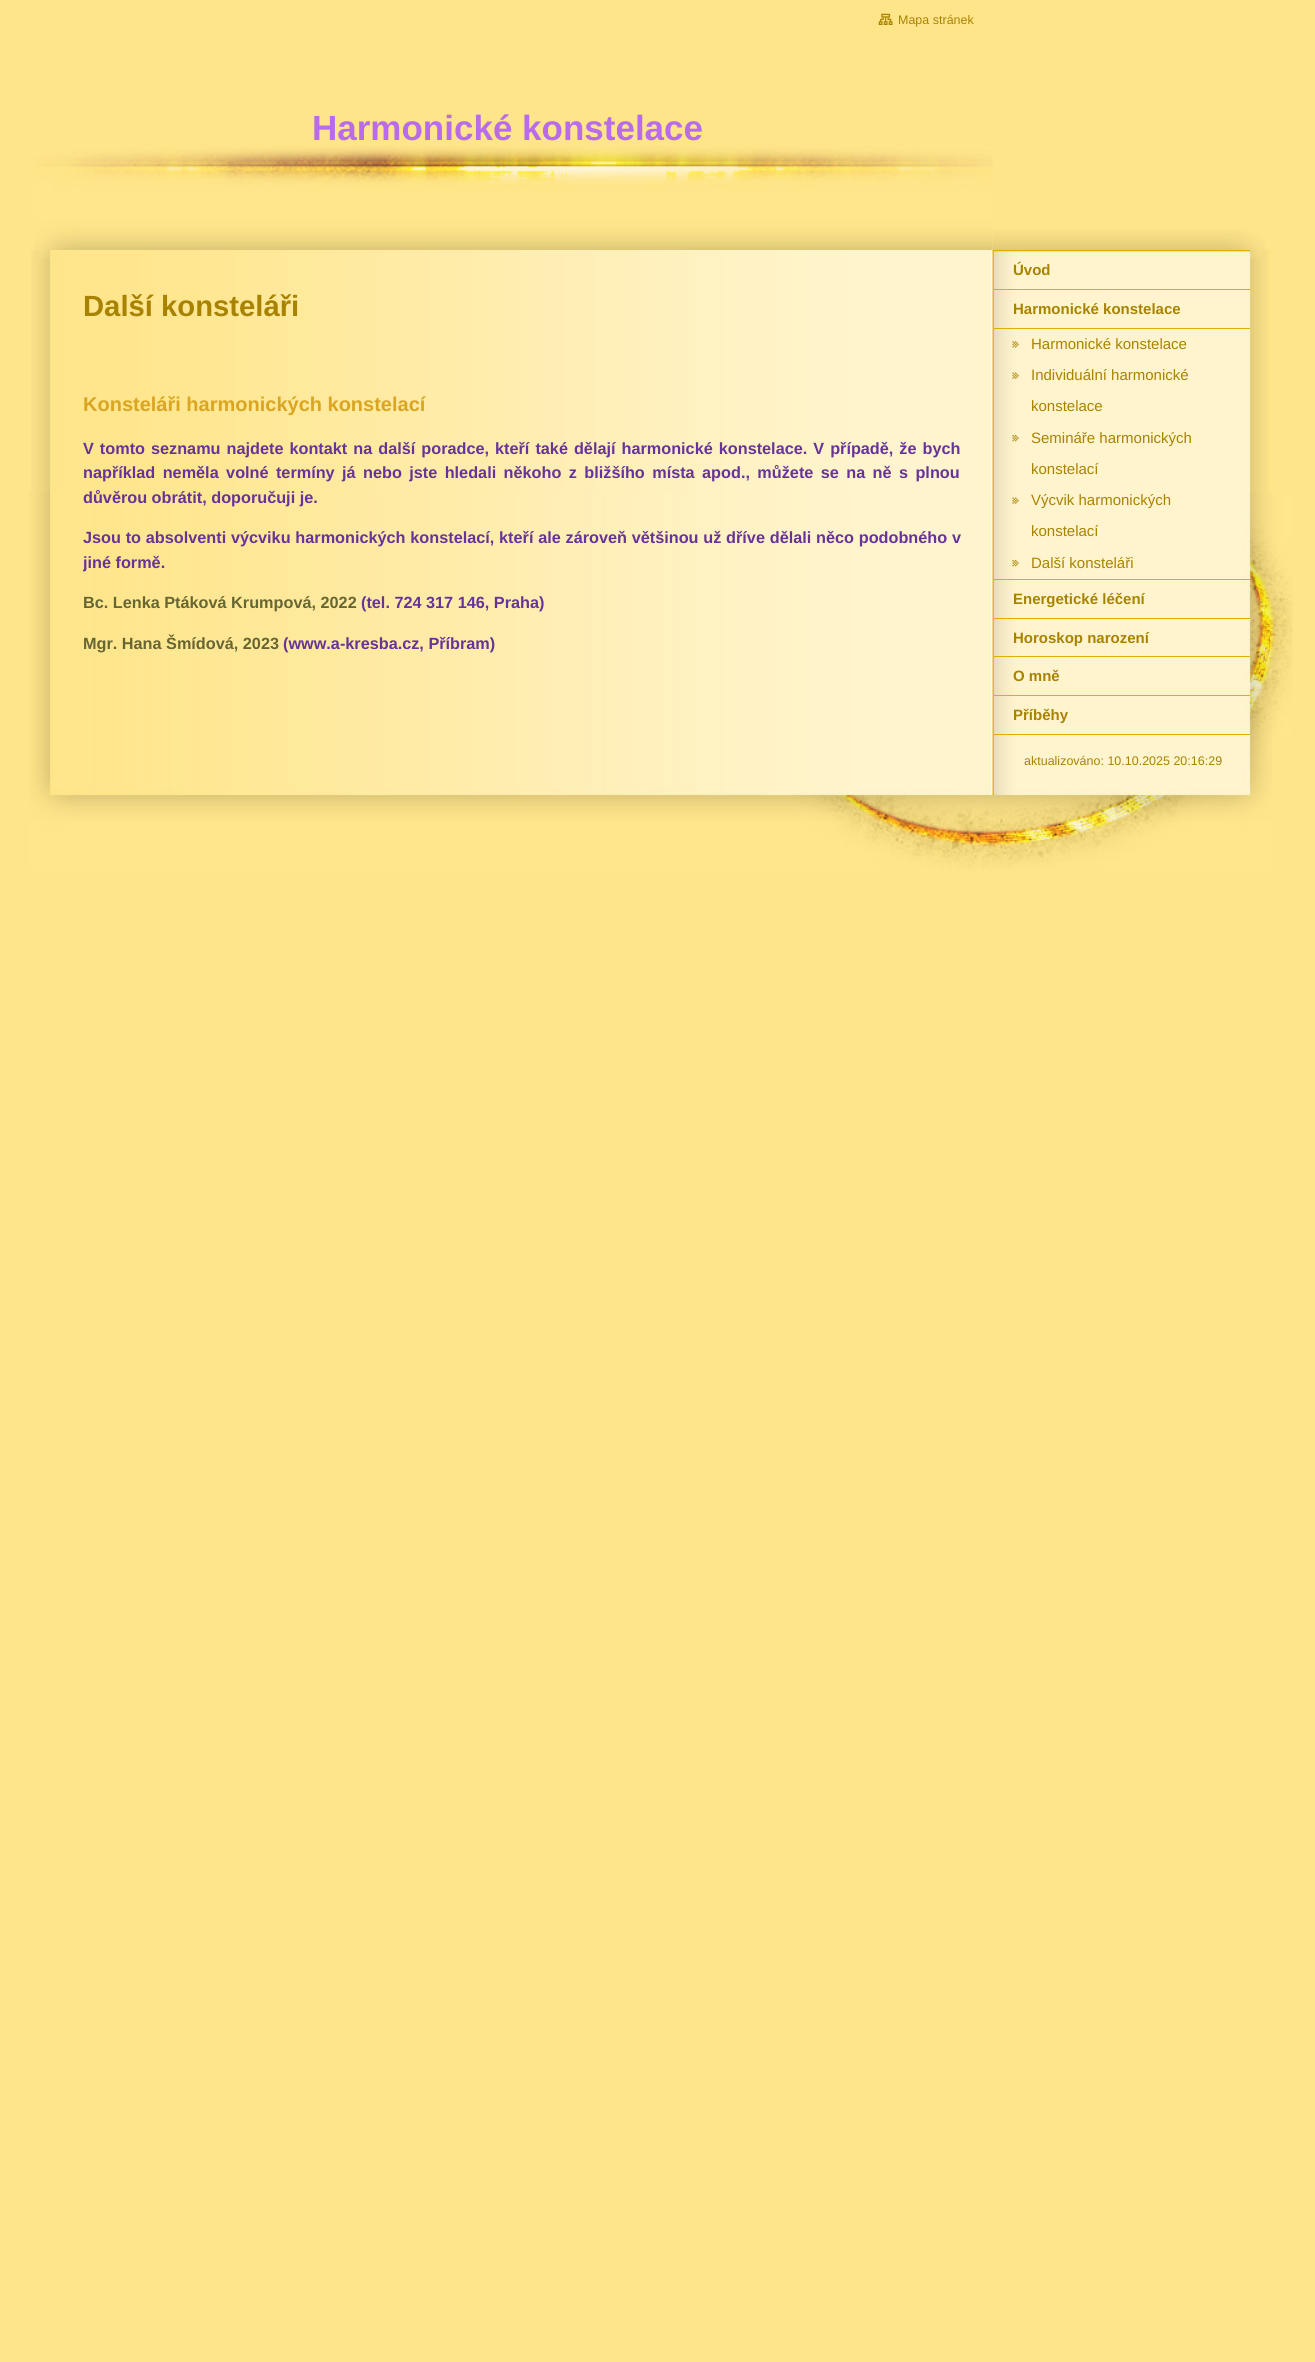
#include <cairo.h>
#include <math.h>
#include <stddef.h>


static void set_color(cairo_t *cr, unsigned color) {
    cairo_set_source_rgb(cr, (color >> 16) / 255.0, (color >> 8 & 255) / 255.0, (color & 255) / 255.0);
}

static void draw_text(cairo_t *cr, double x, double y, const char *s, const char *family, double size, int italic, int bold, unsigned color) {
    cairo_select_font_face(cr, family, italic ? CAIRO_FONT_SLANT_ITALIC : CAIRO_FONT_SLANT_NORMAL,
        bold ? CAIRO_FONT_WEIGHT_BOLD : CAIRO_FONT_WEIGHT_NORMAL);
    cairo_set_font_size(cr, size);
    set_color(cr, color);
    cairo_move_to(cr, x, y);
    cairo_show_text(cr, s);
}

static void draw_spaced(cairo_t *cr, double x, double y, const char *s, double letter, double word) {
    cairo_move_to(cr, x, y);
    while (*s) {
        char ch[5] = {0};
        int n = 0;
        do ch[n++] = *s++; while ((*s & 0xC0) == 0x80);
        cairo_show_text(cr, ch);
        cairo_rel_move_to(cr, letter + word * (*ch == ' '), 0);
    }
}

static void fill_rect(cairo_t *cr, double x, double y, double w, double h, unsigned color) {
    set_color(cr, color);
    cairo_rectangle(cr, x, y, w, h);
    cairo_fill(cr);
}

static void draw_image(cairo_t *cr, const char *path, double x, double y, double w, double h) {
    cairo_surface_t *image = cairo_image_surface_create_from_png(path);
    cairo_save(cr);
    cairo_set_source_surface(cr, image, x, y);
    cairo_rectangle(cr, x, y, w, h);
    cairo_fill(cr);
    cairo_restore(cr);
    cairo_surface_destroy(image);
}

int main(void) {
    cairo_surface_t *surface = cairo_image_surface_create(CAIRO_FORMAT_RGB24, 1315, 2362);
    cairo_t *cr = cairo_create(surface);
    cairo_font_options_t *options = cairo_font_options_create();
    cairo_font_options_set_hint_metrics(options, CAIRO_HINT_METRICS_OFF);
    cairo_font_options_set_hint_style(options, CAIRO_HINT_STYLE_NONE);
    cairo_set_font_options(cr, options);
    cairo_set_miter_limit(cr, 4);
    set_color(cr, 0xFFE58A);
    cairo_paint(cr);
    draw_image(cr, "assets/img1.png", 34, 146, 959, 104);
    draw_image(cr, "assets/img2.png", 878, 13, 15, 12);
    draw_text(cr, 898, 24, "Mapa stránek", "Liberation Sans", 12.5, 0, 0, 0xA88301);
    draw_text(cr, 312, 140, "Harmonické konstelace", "Liberation Sans", 35, 0, 1, 0xB86BEB);
    draw_image(cr, "assets/img3.png", 992, 229, 258, 21);
    draw_image(cr, "assets/img4.png", 1250, 234, 16, 16);
    draw_image(cr, "assets/img5.png", 31, 250, 1238, 243);
    draw_image(cr, "assets/img6.png", 29, 493, 1264, 242);
    draw_image(cr, "assets/img7.png", 38, 250, 1224, 9);
    draw_text(cr, 83, 316, "Další konsteláři", "Liberation Sans", 29.25, 0, 1, 0xA88301);
    draw_text(cr, 83, 411, "Konsteláři harmonických konstelací", "Liberation Sans", 20, 0, 1, 0xDAA520);
    cairo_set_font_size(cr, 16.25);
    set_color(cr, 0x663399);
    draw_spaced(cr, 83, 454, "V tomto seznamu najdete kontakt na další poradce, kteří také dělají harmonické konstelace. V případě, že bych", 0, 1.5);
    draw_spaced(cr, 83, 478, "například neměla volné termíny já nebo jste hledali někoho z bližšího místa apod., můžete se na ně s plnou", 0, 2.9);
    draw_text(cr, 83, 503, "důvěrou obrátit, doporučuji je.", "Liberation Sans", 16.25, 0, 1, 0x663399);
    draw_spaced(cr, 83, 543, "Jsou to absolventi výcviku harmonických konstelací, kteří ale zároveň většinou už dříve dělali něco podobného v", 0, 0.25);
    cairo_save(cr);
    cairo_rectangle(cr, 83, 270, 877, 403);
    cairo_clip(cr);
    draw_text(cr, 83, 568, "jiné formě.", "Liberation Sans", 16.25, 0, 1, 0x663399);
    cairo_restore(cr);
    draw_text(cr, 83, 608, "Bc. Lenka Ptáková Krumpová, 2022", "Liberation Sans", 16.25, 0, 1, 0x666633);
    draw_text(cr, 361, 608, "(tel. 724 317 146, Praha)", "Liberation Sans", 16.25, 0, 1, 0x663399);
    draw_text(cr, 83, 649, "Mgr. Hana Šmídová, 2023", "Liberation Sans", 16.25, 0, 1, 0x666633);
    draw_text(cr, 283, 649, "(www.a-kresba.cz, Příbram)", "Liberation Sans", 16.25, 0, 1, 0x663399);
    fill_rect(cr, 994, 734, 256, 1, 0xE0AE00);
    fill_rect(cr, 1249, 250, 1, 1, 0xE0AE00);
    draw_text(cr, 1013, 275, "Úvod", "Liberation Sans", 15, 0, 1, 0xA88301);
    fill_rect(cr, 994, 289, 256, 1, 0xE0AE00);
    draw_text(cr, 1013, 314, "Harmonické konstelace", "Liberation Sans", 15, 0, 1, 0xA88301);
    fill_rect(cr, 994, 328, 256, 1, 0xE0AE00);
    draw_image(cr, "assets/img8.png", 1012, 341, 7, 7);
    draw_text(cr, 1031, 349, "Harmonické konstelace", "Liberation Sans", 15, 0, 0, 0xA88301);
    draw_image(cr, "assets/img9.png", 1012, 372, 7, 7);
    draw_text(cr, 1031, 380, "Individuální harmonické", "Liberation Sans", 15, 0, 0, 0xA88301);
    draw_text(cr, 1031, 411, "konstelace", "Liberation Sans", 15, 0, 0, 0xA88301);
    draw_image(cr, "assets/img10.png", 1012, 435, 7, 7);
    draw_text(cr, 1031, 443, "Semináře harmonických", "Liberation Sans", 15, 0, 0, 0xA88301);
    draw_text(cr, 1031, 474, "konstelací", "Liberation Sans", 15, 0, 0, 0xA88301);
    draw_image(cr, "assets/img11.png", 1012, 497, 7, 7);
    draw_text(cr, 1031, 505, "Výcvik harmonických", "Liberation Sans", 15, 0, 0, 0xA88301);
    draw_text(cr, 1031, 536, "konstelací", "Liberation Sans", 15, 0, 0, 0xA88301);
    draw_image(cr, "assets/img12.png", 1012, 560, 7, 7);
    draw_text(cr, 1031, 568, "Další konsteláři", "Liberation Sans", 15, 0, 0, 0xA88301);
    fill_rect(cr, 994, 579, 256, 1, 0xE0AE00);
    draw_text(cr, 1013, 604, "Energetické léčení", "Liberation Sans", 15, 0, 1, 0xA88301);
    fill_rect(cr, 994, 618, 256, 1, 0xE0AE00);
    draw_text(cr, 1013, 643, "Horoskop narození", "Liberation Sans", 15, 0, 1, 0xA88301);
    fill_rect(cr, 994, 656, 256, 1, 0xE0AE00);
    draw_text(cr, 1013, 681, "O mně", "Liberation Sans", 15, 0, 1, 0xA88301);
    fill_rect(cr, 994, 695, 256, 1, 0xE0AE00);
    draw_text(cr, 1013, 720, "Příběhy", "Liberation Sans", 15, 0, 1, 0xA88301);
    draw_image(cr, "assets/img13.png", 29, 735, 1243, 5);
    draw_image(cr, "assets/img14.png", 29, 740, 1243, 130);
    draw_text(cr, 1024, 765, "aktualizováno: 10.10.2025 20:16:29", "Liberation Sans", 12.5, 0, 0, 0xA88301);
    cairo_surface_write_to_png(surface, "output.png");
    cairo_font_options_destroy(options);
    cairo_destroy(cr);
    cairo_surface_destroy(surface);
    return 0;
}
